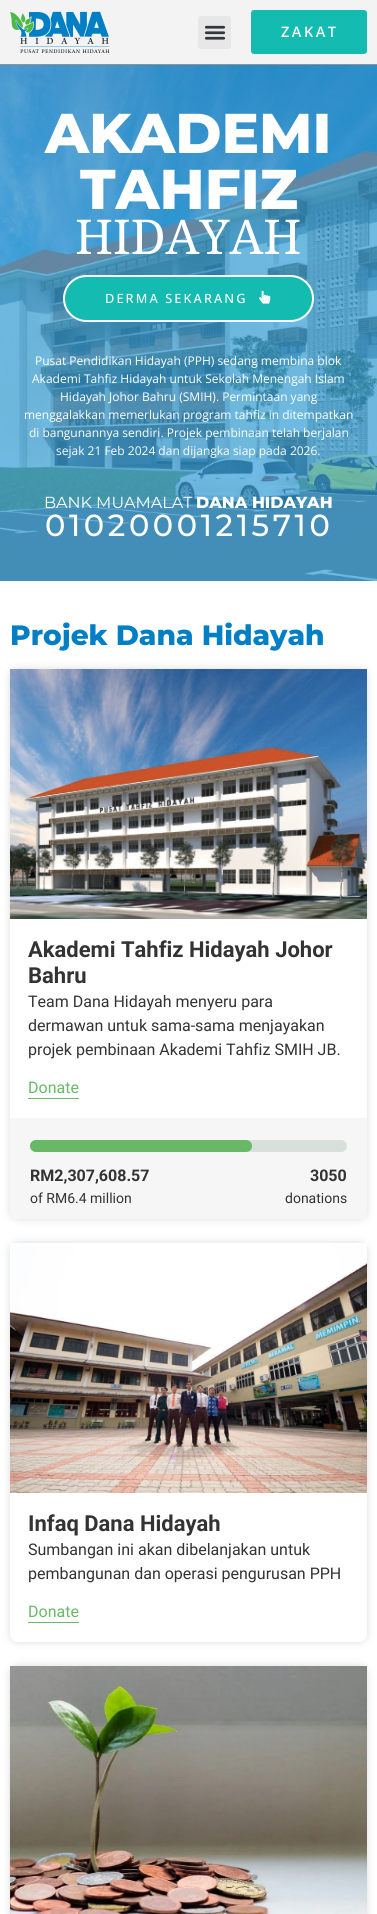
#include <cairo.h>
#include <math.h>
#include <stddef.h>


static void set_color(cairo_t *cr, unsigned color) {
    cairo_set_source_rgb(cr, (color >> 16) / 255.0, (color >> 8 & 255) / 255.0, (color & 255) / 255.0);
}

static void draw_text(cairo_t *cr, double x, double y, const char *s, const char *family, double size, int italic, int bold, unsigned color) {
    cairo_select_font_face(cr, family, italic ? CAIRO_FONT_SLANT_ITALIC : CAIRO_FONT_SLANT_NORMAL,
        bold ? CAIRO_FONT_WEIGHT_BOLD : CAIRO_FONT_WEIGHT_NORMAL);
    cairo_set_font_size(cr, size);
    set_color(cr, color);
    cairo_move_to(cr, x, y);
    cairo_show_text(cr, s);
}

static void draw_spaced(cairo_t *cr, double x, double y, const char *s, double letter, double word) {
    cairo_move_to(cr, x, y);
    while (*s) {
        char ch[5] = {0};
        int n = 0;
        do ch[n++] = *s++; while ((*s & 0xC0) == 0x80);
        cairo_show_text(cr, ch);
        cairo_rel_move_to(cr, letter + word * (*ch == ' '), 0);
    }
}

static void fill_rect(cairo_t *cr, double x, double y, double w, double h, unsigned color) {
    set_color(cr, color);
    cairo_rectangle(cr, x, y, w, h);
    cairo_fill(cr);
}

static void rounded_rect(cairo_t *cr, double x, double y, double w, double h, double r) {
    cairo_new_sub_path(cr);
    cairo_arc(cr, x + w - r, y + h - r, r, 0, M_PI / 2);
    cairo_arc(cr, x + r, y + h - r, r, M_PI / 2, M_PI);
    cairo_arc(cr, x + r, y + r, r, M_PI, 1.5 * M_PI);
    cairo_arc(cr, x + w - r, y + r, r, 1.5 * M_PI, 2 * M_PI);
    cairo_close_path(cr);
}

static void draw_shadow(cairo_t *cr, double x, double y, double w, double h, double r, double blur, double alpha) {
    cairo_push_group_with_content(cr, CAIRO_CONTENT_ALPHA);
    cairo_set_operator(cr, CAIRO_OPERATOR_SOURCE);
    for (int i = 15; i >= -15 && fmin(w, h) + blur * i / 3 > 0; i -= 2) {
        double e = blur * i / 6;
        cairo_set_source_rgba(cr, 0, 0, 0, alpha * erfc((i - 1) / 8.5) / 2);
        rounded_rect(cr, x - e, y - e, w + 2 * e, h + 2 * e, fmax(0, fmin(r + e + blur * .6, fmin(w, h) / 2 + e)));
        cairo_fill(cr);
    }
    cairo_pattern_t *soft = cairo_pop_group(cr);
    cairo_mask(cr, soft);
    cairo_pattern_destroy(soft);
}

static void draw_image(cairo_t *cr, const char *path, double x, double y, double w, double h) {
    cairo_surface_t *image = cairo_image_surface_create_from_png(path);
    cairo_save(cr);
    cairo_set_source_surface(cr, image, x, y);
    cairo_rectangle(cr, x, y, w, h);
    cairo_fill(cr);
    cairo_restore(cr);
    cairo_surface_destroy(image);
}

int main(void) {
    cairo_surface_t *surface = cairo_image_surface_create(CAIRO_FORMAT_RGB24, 377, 1914);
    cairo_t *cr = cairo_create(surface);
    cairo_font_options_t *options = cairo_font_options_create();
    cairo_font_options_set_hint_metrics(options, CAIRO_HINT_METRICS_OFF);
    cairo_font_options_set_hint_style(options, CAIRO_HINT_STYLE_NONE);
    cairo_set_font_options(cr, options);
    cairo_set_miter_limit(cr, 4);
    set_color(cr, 0xFFFFFF);
    cairo_paint(cr);
    fill_rect(cr, 0, 0, 377, 64, 0xF3F3F3);
    fill_rect(cr, 0, 64, 377, 1, 0x929292);
    draw_image(cr, "assets/img1.png", 10, 11, 100, 42);
    set_color(cr, 0xE7E7E7);
    rounded_rect(cr, 198, 16, 33, 33, 3);
    cairo_fill(cr);
    draw_image(cr, "assets/img2.png", 204, 25, 22, 15);
    set_color(cr, 0x14BBB0);
    rounded_rect(cr, 251, 10, 116, 44, 3);
    cairo_fill(cr);
    cairo_select_font_face(cr, "Open Sans SemiBold", CAIRO_FONT_SLANT_NORMAL, CAIRO_FONT_WEIGHT_NORMAL);
    cairo_set_font_size(cr, 14.5);
    set_color(cr, 0xFFFFFF);
    draw_spaced(cr, 281, 37, "ZAKAT", 2.5, 0);
    fill_rect(cr, 0, 65, 377, 516, 0x36A0DA);
    draw_image(cr, "assets/img3.png", 0, 65, 377, 516);
    draw_text(cr, 45, 153, "AKADEMI", "Montserrat ExtraBold", 56, 0, 0, 0xFFFFFF);
    draw_text(cr, 80, 209, "TAHFIZ", "Montserrat ExtraBold", 56, 0, 0, 0xFFFFFF);
    draw_text(cr, 75, 254, "HIDAYAH", "Noto Serif", 48, 0, 0, 0xFFFFFF);
    set_color(cr, 0x14BBB0);
    rounded_rect(cr, 64, 276, 249, 45, 22.5);
    cairo_fill_preserve(cr);
    set_color(cr, 0xFFFFFF);
    cairo_stroke(cr);
    cairo_select_font_face(cr, "Open Sans Medium", CAIRO_FONT_SLANT_NORMAL, CAIRO_FONT_WEIGHT_NORMAL);
    cairo_set_font_size(cr, 12.75);
    draw_spaced(cr, 105, 303, "DERMA SEKARANG", 2.1, 0);
    draw_image(cr, "assets/img4.png", 259, 290, 12, 14);
    draw_text(cr, 35, 365, "Pusat Pendidikan Hidayah (PPH) sedang membina blok", "Open Sans", 12, 0, 0, 0xFFFFFF);
    draw_text(cr, 32, 383, "Akademi Tahfiz Hidayah untuk Sekolah Menengah Islam", "Open Sans", 12, 0, 0, 0xFFFFFF);
    draw_text(cr, 60, 401, "Hidayah Johor Bahru (SMIH). Permintaan yang", "Open Sans", 12, 0, 0, 0xFFFFFF);
    draw_text(cr, 24, 419, "menggalakkan memerlukan program tahfiz in ditempatkan", "Open Sans", 12, 0, 0, 0xFFFFFF);
    draw_text(cr, 29, 437, "di bangunannya sendiri. Projek pembinaan telah berjalan", "Open Sans", 12, 0, 0, 0xFFFFFF);
    draw_text(cr, 56, 455, "sejak 21 Feb 2024 dan dijangka siap pada 2026.", "Open Sans", 12, 0, 0, 0xFFFFFF);
    draw_text(cr, 44, 508, "BANK MUAMALAT", "Montserrat", 16, 0, 0, 0xFFFFFF);
    draw_text(cr, 196, 508, "DANA HIDAYAH", "Montserrat ExtraBold", 16, 0, 0, 0xFFFFFF);
    cairo_select_font_face(cr, "Montserrat Medium", CAIRO_FONT_SLANT_NORMAL, CAIRO_FONT_WEIGHT_NORMAL);
    cairo_set_font_size(cr, 30.5);
    draw_spaced(cr, 45, 536, "01020001215710", 3.6, 0);
    draw_text(cr, 10, 645, "Projek Dana Hidayah", "Montserrat ExtraBold", 28, 0, 0, 0x007FC4);
    set_color(cr, 0x707070);
    draw_shadow(cr, 10, 669, 357, 550, 8, 4, 0.25);
    fill_rect(cr, 10, 919, 357, 199, 0xFFFFFF);
    draw_image(cr, "assets/img5.png", 10, 669, 357, 250);
    draw_text(cr, 28, 957, "Akademi Tahfiz Hidayah Johor", "Roboto", 22, 0, 1, 0x333333);
    draw_text(cr, 28, 983, "Bahru", "Roboto", 22, 0, 1, 0x333333);
    draw_text(cr, 28, 1007, "Team Dana Hidayah menyeru para", "Roboto", 16, 0, 0, 0x333333);
    draw_text(cr, 28, 1031, "dermawan untuk sama-sama menjayakan", "Roboto", 16, 0, 0, 0x333333);
    draw_text(cr, 28, 1055, "projek pembinaan Akademi Tahfiz SMIH JB.", "Roboto", 16, 0, 0, 0x333333);
    draw_text(cr, 28, 1093, "Donate", "Roboto", 16, 0, 0, 0x69B86B);
    fill_rect(cr, 28, 1098, 51, 1, 0x69B86B);
    fill_rect(cr, 10, 1118, 357, 101, 0xF6F6F6);
    set_color(cr, 0xD9DFDB);
    rounded_rect(cr, 30, 1140, 317, 12, 6);
    cairo_fill(cr);
    set_color(cr, 0x69B868);
    rounded_rect(cr, 30, 1140, 222, 12, 6);
    cairo_fill(cr);
    draw_text(cr, 30, 1181, "RM2,307,608.57", "Roboto", 16, 0, 1, 0x333333);
    draw_text(cr, 30, 1203, "of RM6.4 million", "Roboto", 14, 0, 0, 0x333333);
    draw_text(cr, 310, 1181, "3050", "Roboto", 16, 0, 1, 0x333333);
    draw_text(cr, 285, 1203, "donations", "Roboto", 14, 0, 0, 0x333333);
    set_color(cr, 0x707070);
    draw_shadow(cr, 10, 1243, 357, 399, 8, 4, 0.25);
    set_color(cr, 0xFFFFFF);
    rounded_rect(cr, 10, 1243, 357, 399, 8);
    cairo_fill(cr);
    draw_image(cr, "assets/img6.png", 10, 1243, 357, 250);
    draw_text(cr, 28, 1531, "Infaq Dana Hidayah", "Roboto", 22, 0, 1, 0x333333);
    draw_text(cr, 28, 1555, "Sumbangan ini akan dibelanjakan untuk", "Roboto", 16, 0, 0, 0x333333);
    draw_text(cr, 28, 1579, "pembangunan dan operasi pengurusan PPH", "Roboto", 16, 0, 0, 0x333333);
    draw_text(cr, 28, 1617, "Donate", "Roboto", 16, 0, 0, 0x69B86B);
    fill_rect(cr, 28, 1622, 51, 1, 0x69B86B);
    set_color(cr, 0x707070);
    draw_shadow(cr, 10, 1666, 357, 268, 8, 4, 0.25);
    draw_image(cr, "assets/img7.png", 10, 1666, 357, 248);
    cairo_surface_write_to_png(surface, "output.png");
    cairo_font_options_destroy(options);
    cairo_destroy(cr);
    cairo_surface_destroy(surface);
    return 0;
}
